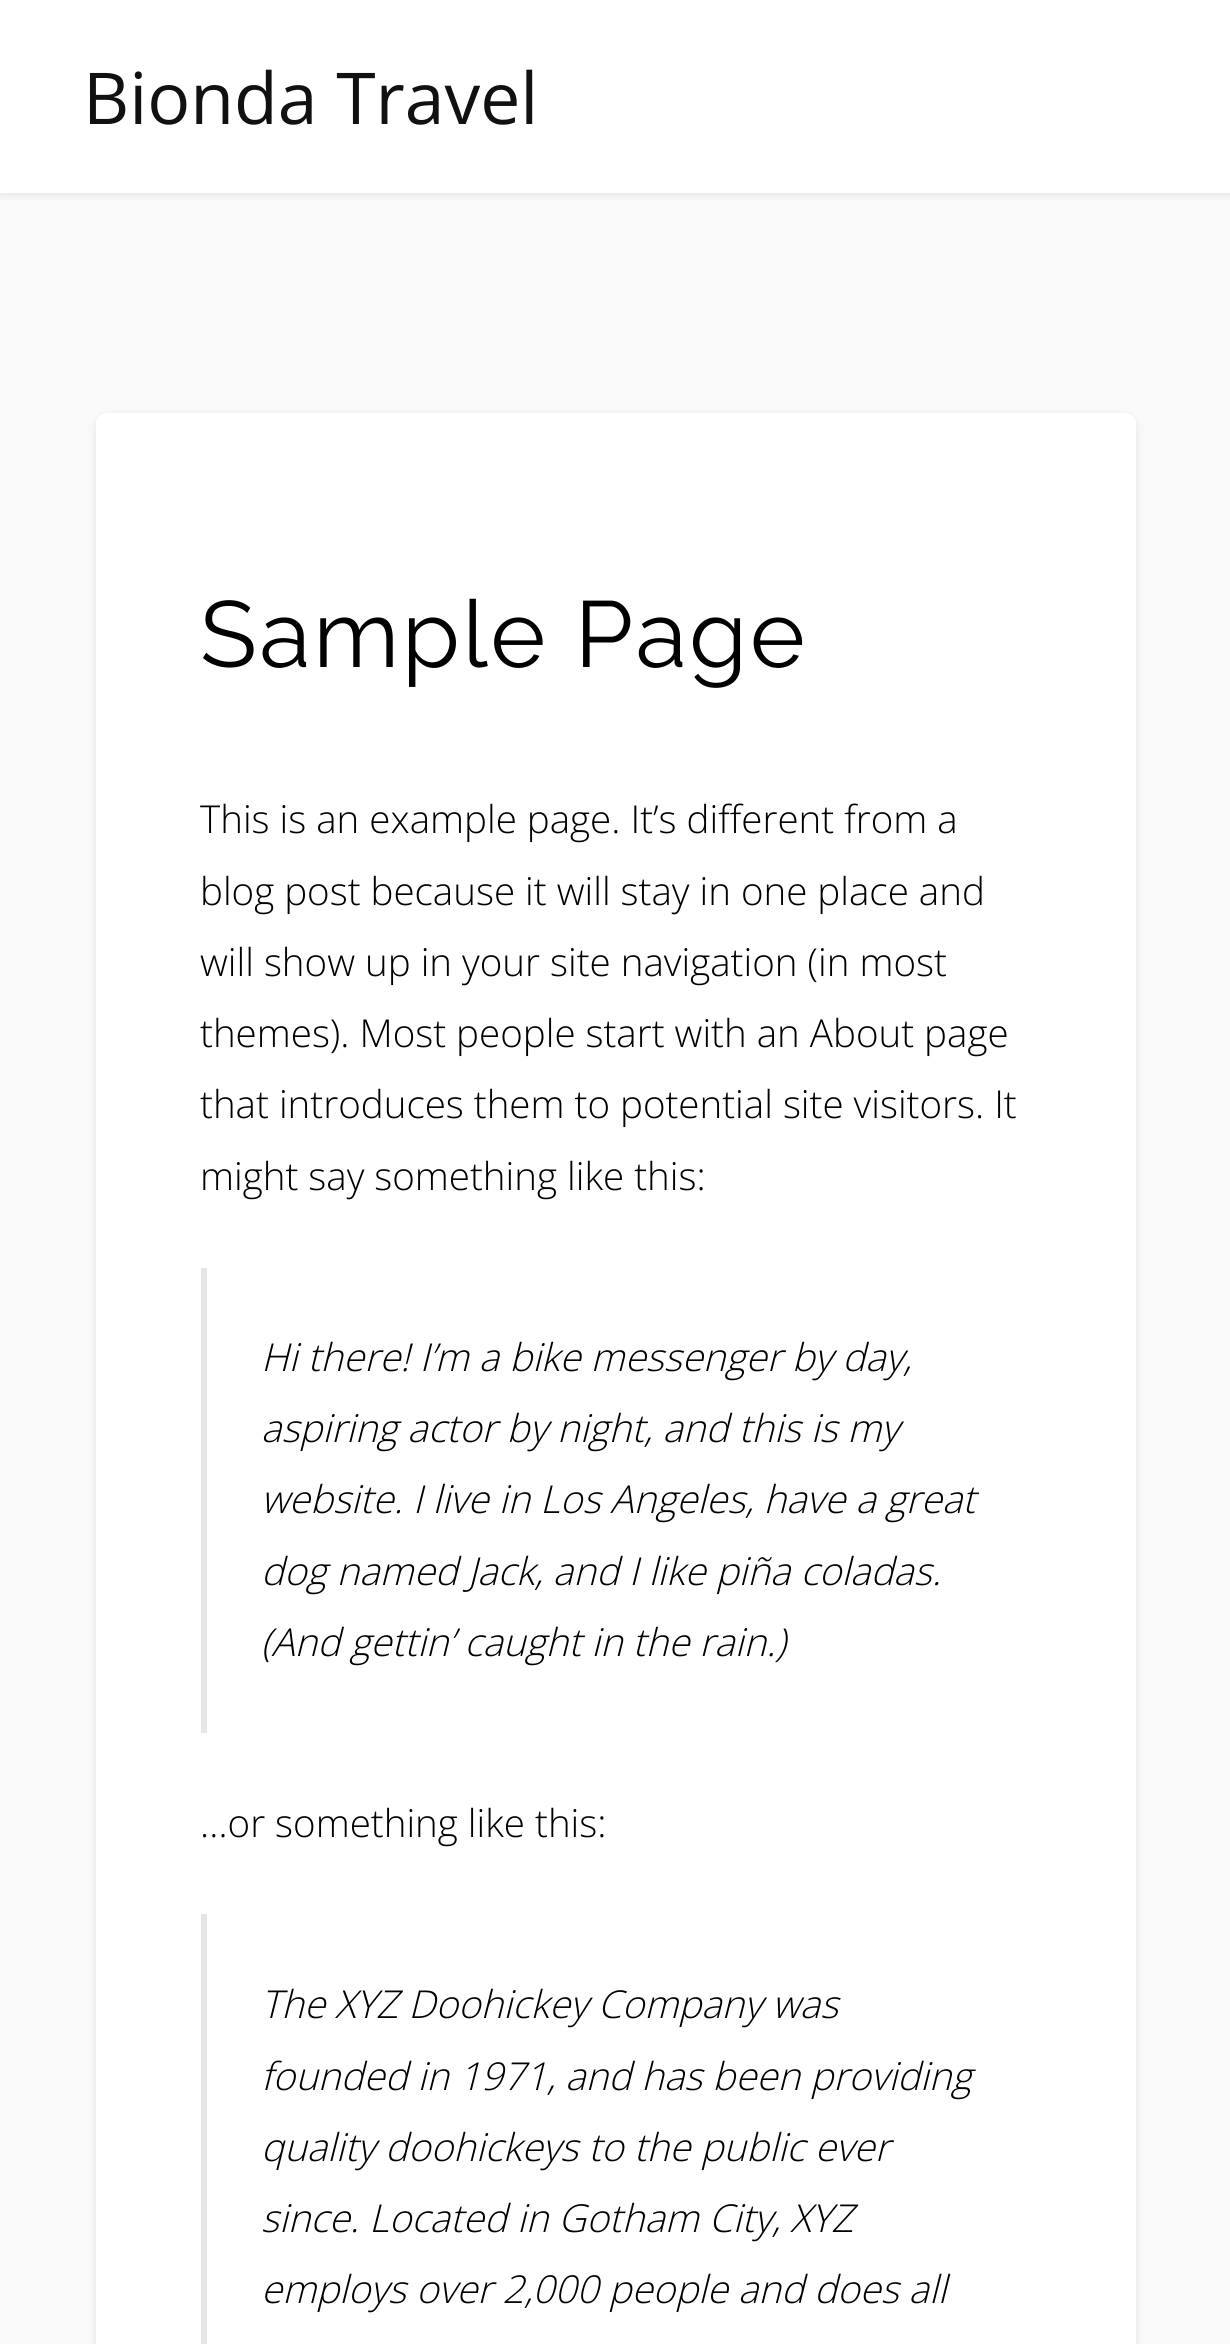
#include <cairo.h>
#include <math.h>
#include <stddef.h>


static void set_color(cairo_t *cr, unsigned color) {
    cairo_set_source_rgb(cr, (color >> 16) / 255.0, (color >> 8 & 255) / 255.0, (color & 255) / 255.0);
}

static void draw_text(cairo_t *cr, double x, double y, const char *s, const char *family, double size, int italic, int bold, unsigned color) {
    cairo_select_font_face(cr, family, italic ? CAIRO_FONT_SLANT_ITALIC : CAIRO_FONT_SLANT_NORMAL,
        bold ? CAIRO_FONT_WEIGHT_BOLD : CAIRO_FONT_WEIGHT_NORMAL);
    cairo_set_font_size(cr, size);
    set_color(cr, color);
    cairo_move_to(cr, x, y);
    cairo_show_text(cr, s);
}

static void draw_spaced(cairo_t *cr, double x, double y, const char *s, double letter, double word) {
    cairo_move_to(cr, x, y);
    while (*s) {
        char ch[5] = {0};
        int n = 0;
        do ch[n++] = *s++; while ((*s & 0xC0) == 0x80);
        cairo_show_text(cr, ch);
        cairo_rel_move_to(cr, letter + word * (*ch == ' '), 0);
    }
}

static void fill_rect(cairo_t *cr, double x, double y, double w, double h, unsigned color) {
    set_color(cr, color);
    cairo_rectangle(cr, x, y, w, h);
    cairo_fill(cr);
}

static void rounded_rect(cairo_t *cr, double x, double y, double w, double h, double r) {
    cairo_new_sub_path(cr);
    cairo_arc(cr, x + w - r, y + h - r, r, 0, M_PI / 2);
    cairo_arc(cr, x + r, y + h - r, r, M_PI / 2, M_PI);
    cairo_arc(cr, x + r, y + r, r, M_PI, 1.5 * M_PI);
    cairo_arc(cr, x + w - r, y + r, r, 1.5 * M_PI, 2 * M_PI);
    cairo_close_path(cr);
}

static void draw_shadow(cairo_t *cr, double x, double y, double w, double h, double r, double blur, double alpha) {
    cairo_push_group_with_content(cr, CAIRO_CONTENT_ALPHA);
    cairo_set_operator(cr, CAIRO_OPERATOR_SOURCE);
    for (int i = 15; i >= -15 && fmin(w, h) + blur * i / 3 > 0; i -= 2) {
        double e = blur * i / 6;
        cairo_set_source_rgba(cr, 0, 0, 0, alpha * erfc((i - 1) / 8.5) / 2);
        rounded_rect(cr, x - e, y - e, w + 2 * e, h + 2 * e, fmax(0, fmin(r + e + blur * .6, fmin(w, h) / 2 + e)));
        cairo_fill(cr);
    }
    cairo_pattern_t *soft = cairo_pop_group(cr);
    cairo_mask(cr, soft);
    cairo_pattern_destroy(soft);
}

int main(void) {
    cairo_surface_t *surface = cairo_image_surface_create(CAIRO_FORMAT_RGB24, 1230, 2344);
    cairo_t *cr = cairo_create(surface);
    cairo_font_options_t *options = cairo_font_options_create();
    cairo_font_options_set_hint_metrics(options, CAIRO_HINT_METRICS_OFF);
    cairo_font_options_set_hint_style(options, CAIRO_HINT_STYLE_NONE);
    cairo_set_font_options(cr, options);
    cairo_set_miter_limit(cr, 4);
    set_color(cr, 0xF9F9F9);
    cairo_paint(cr);
    set_color(cr, 0x000000);
    draw_shadow(cr, 0, 3, 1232, 192, 0, 4, 0.08);
    fill_rect(cr, 0, 0, 1230, 193, 0xFFFFFF);
    draw_text(cr, 83, 124, "Bionda Travel", "Open Sans", 71.5, 0, 0, 0x111111);
    set_color(cr, 0x000000);
    draw_shadow(cr, 96, 415, 1040, 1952, 11, 4, 0.08);
    set_color(cr, 0xFFFFFF);
    rounded_rect(cr, 96, 413, 1040, 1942, 11);
    cairo_fill(cr);
    cairo_select_font_face(cr, "Raleway", CAIRO_FONT_SLANT_NORMAL, CAIRO_FONT_WEIGHT_NORMAL);
    cairo_set_font_size(cr, 93.5);
    set_color(cr, 0x000000);
    draw_spaced(cr, 200, 667, "Sample Page", 2.75, 0);
    draw_text(cr, 200, 833, "This is an example page. It’s different from a", "Open Sans Light", 38.5, 0, 0, 0x000000);
    draw_text(cr, 200, 905, "blog post because it will stay in one place and", "Open Sans Light", 38.5, 0, 0, 0x000000);
    draw_text(cr, 200, 976, "will show up in your site navigation (in most", "Open Sans Light", 38.5, 0, 0, 0x000000);
    draw_text(cr, 200, 1047, "themes). Most people start with an About page", "Open Sans Light", 38.5, 0, 0, 0x000000);
    draw_text(cr, 200, 1118, "that introduces them to potential site visitors. It", "Open Sans Light", 38.5, 0, 0, 0x000000);
    draw_text(cr, 200, 1190, "might say something like this:", "Open Sans Light", 38.5, 0, 0, 0x000000);
    fill_rect(cr, 201, 1268, 6, 465, 0xE7E6E6);
    draw_text(cr, 261, 1371, "Hi there! I’m a bike messenger by day,", "Open Sans Light", 38.5, 1, 0, 0x000000);
    draw_text(cr, 261, 1442, "aspiring actor by night, and this is my", "Open Sans Light", 38.5, 1, 0, 0x000000);
    draw_text(cr, 261, 1513, "website. I live in Los Angeles, have a great", "Open Sans Light", 38.5, 1, 0, 0x000000);
    draw_text(cr, 261, 1585, "dog named Jack, and I like piña coladas.", "Open Sans Light", 38.5, 1, 0, 0x000000);
    draw_text(cr, 261, 1656, "(And gettin’ caught in the rain.)", "Open Sans Light", 38.5, 1, 0, 0x000000);
    draw_text(cr, 200, 1837, "…or something like this:", "Open Sans Light", 38.5, 0, 0, 0x000000);
    fill_rect(cr, 201, 1914, 6, 430, 0xE7E6E6);
    draw_text(cr, 261, 2018, "The XYZ Doohickey Company was", "Open Sans Light", 38.5, 1, 0, 0x000000);
    draw_text(cr, 261, 2090, "founded in 1971, and has been providing", "Open Sans Light", 38.5, 1, 0, 0x000000);
    draw_text(cr, 261, 2161, "quality doohickeys to the public ever", "Open Sans Light", 38.5, 1, 0, 0x000000);
    draw_text(cr, 261, 2232, "since. Located in Gotham City, XYZ", "Open Sans Light", 38.5, 1, 0, 0x000000);
    draw_text(cr, 261, 2303, "employs over 2,000 people and does all", "Open Sans Light", 38.5, 1, 0, 0x000000);
    cairo_surface_write_to_png(surface, "output.png");
    cairo_font_options_destroy(options);
    cairo_destroy(cr);
    cairo_surface_destroy(surface);
    return 0;
}
